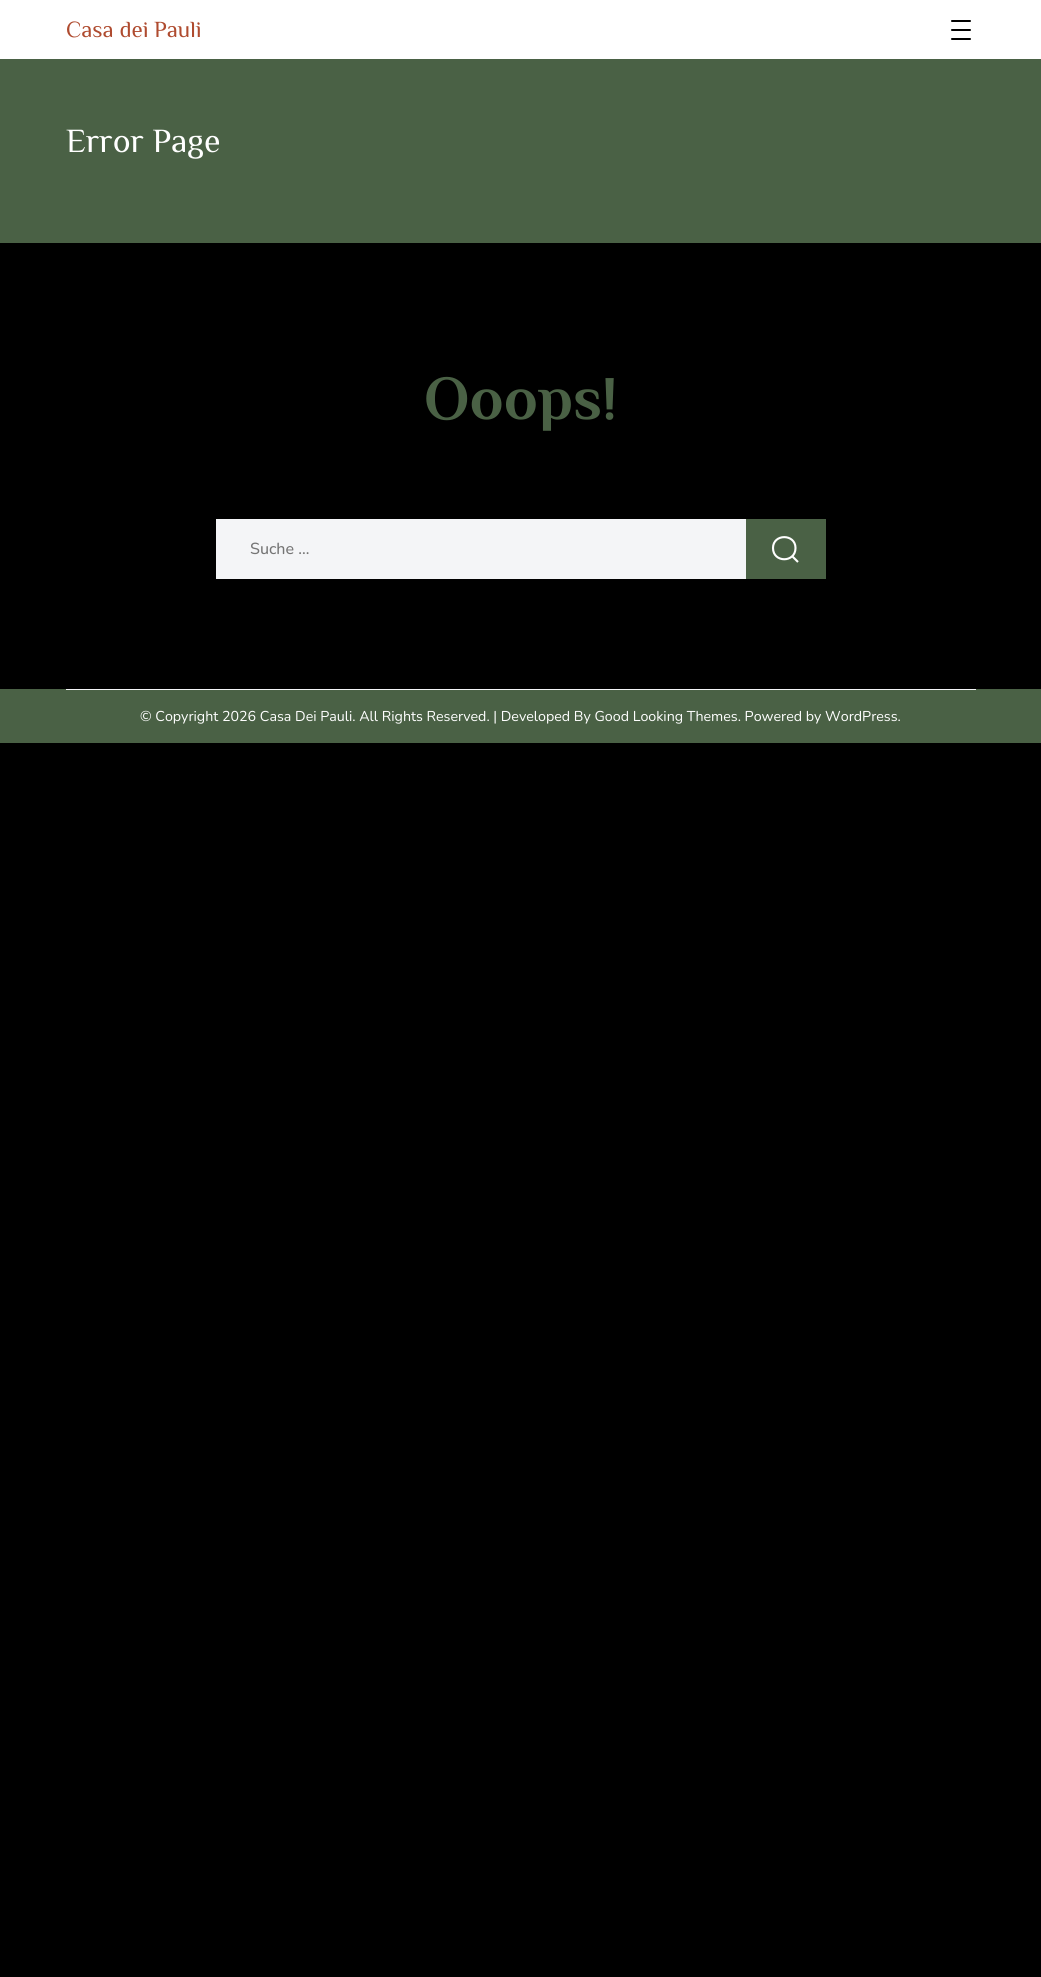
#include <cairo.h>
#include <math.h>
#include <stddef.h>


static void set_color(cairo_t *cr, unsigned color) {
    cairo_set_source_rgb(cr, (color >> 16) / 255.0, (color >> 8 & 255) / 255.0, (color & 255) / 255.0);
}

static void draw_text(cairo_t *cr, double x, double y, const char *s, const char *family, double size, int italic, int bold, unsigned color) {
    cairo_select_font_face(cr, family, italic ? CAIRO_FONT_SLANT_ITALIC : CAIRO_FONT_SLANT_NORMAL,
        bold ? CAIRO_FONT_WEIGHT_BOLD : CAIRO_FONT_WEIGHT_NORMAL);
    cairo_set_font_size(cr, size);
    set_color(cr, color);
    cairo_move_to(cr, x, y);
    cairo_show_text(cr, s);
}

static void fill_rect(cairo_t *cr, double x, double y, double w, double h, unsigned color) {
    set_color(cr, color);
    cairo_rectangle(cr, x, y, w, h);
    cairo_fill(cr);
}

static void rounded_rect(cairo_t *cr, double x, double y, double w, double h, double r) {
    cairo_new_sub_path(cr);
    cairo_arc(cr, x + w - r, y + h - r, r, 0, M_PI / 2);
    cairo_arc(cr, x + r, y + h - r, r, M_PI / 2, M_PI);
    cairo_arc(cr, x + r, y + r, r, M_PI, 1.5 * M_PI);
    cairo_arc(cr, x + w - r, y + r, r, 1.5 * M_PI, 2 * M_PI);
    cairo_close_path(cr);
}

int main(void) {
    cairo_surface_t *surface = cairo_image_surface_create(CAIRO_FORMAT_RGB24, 1041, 1977);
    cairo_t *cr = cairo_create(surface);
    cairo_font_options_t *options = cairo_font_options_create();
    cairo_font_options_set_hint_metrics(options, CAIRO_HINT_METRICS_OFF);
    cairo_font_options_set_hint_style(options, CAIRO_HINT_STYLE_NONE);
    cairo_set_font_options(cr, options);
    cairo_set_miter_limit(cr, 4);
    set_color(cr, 0x000000);
    cairo_paint(cr);
    fill_rect(cr, 0, 0, 1041, 59, 0xFFFFFF);
    draw_text(cr, 66, 37, "Casa dei Pauli", "Philosopher", 23, 0, 0, 0xAF4B2F);
    set_color(cr, 0x000000);
    rounded_rect(cr, 951, 20, 20, 2, 1);
    cairo_fill(cr);
    rounded_rect(cr, 951, 29, 20, 2, 1);
    cairo_fill(cr);
    rounded_rect(cr, 951, 38, 20, 2, 1);
    cairo_fill(cr);
    fill_rect(cr, 0, 59, 1041, 184, 0x4A6145);
    draw_text(cr, 66, 152, "Error Page", "Philosopher", 33.75, 0, 0, 0xFFFFFF);
    draw_text(cr, 424, 419, "Ooops!", "Philosopher", 62, 0, 1, 0x4A6145);
    fill_rect(cr, 216, 519, 530, 60, 0xF4F5F7);
    draw_text(cr, 250, 554, "Suche …", "Nunito Medium", 16, 0, 0, 0x757575);
    fill_rect(cr, 746, 519, 80, 60, 0x4A6145);
    cairo_new_path(cr);
    cairo_move_to(cr, 798, 562);
    cairo_line_to(cr, 792, 556);
    cairo_close_path(cr);
    cairo_move_to(cr, 795.5, 548);
    cairo_curve_to(cr, 795.5, 563, 773, 563, 773, 548);
    cairo_curve_to(cr, 773, 533.5, 795.5, 533.5, 795.5, 548);
    cairo_close_path(cr);
    set_color(cr, 0xFFFFFF);
    cairo_set_line_width(cr, 2.1);
    cairo_set_line_cap(cr, CAIRO_LINE_CAP_ROUND);
    cairo_stroke(cr);
    fill_rect(cr, 0, 689, 1041, 54, 0x4A6145);
    fill_rect(cr, 66, 689, 910, 1, 0xF4F5F7);
    draw_text(cr, 140, 721, "© Copyright 2026 Casa Dei Pauli. All Rights Reserved. | Developed By Good Looking Themes. Powered by WordPress.", "Nunito", 14.25, 0, 0, 0xFFFFFF);
    cairo_surface_write_to_png(surface, "output.png");
    cairo_font_options_destroy(options);
    cairo_destroy(cr);
    cairo_surface_destroy(surface);
    return 0;
}
